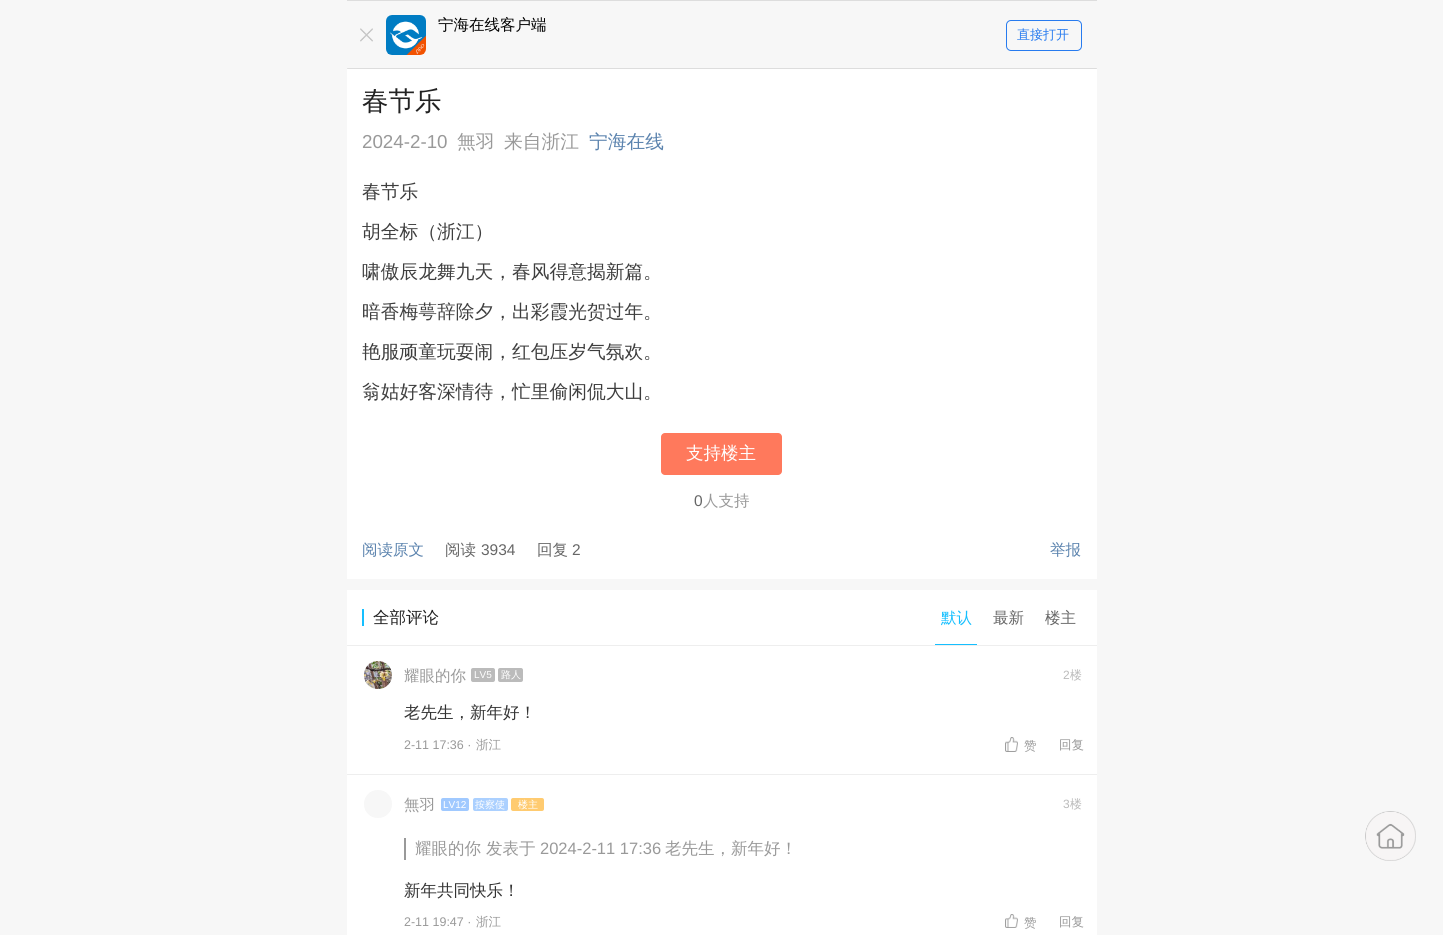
#include <cairo.h>
#include <math.h>
#include <stddef.h>


static void set_color(cairo_t *cr, unsigned color) {
    cairo_set_source_rgb(cr, (color >> 16) / 255.0, (color >> 8 & 255) / 255.0, (color & 255) / 255.0);
}

static void draw_text(cairo_t *cr, double x, double y, const char *s, const char *family, double size, int italic, int bold, unsigned color) {
    cairo_select_font_face(cr, family, italic ? CAIRO_FONT_SLANT_ITALIC : CAIRO_FONT_SLANT_NORMAL,
        bold ? CAIRO_FONT_WEIGHT_BOLD : CAIRO_FONT_WEIGHT_NORMAL);
    cairo_set_font_size(cr, size);
    set_color(cr, color);
    cairo_move_to(cr, x, y);
    cairo_show_text(cr, s);
}

static void fill_rect(cairo_t *cr, double x, double y, double w, double h, unsigned color) {
    set_color(cr, color);
    cairo_rectangle(cr, x, y, w, h);
    cairo_fill(cr);
}

static void rounded_rect(cairo_t *cr, double x, double y, double w, double h, double r) {
    cairo_new_sub_path(cr);
    cairo_arc(cr, x + w - r, y + h - r, r, 0, M_PI / 2);
    cairo_arc(cr, x + r, y + h - r, r, M_PI / 2, M_PI);
    cairo_arc(cr, x + r, y + r, r, M_PI, 1.5 * M_PI);
    cairo_arc(cr, x + w - r, y + r, r, 1.5 * M_PI, 2 * M_PI);
    cairo_close_path(cr);
}

static void draw_image(cairo_t *cr, const char *path, double x, double y, double w, double h) {
    cairo_surface_t *image = cairo_image_surface_create_from_png(path);
    cairo_save(cr);
    cairo_set_source_surface(cr, image, x, y);
    cairo_rectangle(cr, x, y, w, h);
    cairo_fill(cr);
    cairo_restore(cr);
    cairo_surface_destroy(image);
}

int main(void) {
    cairo_surface_t *surface = cairo_image_surface_create(CAIRO_FORMAT_RGB24, 1443, 935);
    cairo_t *cr = cairo_create(surface);
    cairo_font_options_t *options = cairo_font_options_create();
    cairo_font_options_set_hint_metrics(options, CAIRO_HINT_METRICS_OFF);
    cairo_font_options_set_hint_style(options, CAIRO_HINT_STYLE_NONE);
    cairo_set_font_options(cr, options);
    cairo_set_miter_limit(cr, 4);
    set_color(cr, 0xF7F7F7);
    cairo_paint(cr);
    fill_rect(cr, 347, 0, 750, 1, 0xDDDDDD);
    draw_image(cr, "assets/img1.png", 386, 15, 40, 40);
    draw_text(cr, 438, 30, "宁海在线客户端", "WenQuanYi Zen Hei Medium", 15.5, 0, 0, 0x000000);
    draw_image(cr, "assets/img2.png", 360, 28, 13, 14);
    rounded_rect(cr, 1006.5, 20.5, 75, 30, 4.5);
    set_color(cr, 0x277BEF);
    cairo_set_line_width(cr, 1);
    cairo_stroke(cr);
    draw_text(cr, 1017, 39, "直接打开", "WenQuanYi Zen Hei Medium", 13, 0, 0, 0x277BEF);
    set_color(cr, 0xDDDDDD);
    rounded_rect(cr, 347, 68, 750, 1, 0.5);
    cairo_fill(cr);
    fill_rect(cr, 347, 69, 750, 510, 0xFFFFFF);
    draw_text(cr, 362, 110, "春节乐", "WenQuanYi Zen Hei Medium", 26.5, 0, 0, 0x222222);
    draw_text(cr, 362, 148, "2024-2-10", "Liberation Sans", 18.75, 0, 0, 0x999999);
    draw_text(cr, 457, 148, "無羽", "WenQuanYi Zen Hei Medium", 18.75, 0, 0, 0x999999);
    draw_text(cr, 504, 148, "来自浙江", "WenQuanYi Zen Hei Medium", 18.75, 0, 0, 0x999999);
    draw_text(cr, 589, 148, "宁海在线", "WenQuanYi Zen Hei Medium", 18.75, 0, 0, 0x5B83AE);
    draw_text(cr, 362, 198, "春节乐", "WenQuanYi Zen Hei Medium", 18.75, 0, 0, 0x3E3E3E);
    draw_text(cr, 362, 238, "胡全标（浙江）", "WenQuanYi Zen Hei Medium", 18.75, 0, 0, 0x3E3E3E);
    draw_text(cr, 362, 278, "啸傲辰龙舞九天，春风得意揭新篇。", "WenQuanYi Zen Hei Medium", 18.75, 0, 0, 0x3E3E3E);
    draw_text(cr, 362, 318, "暗香梅萼辞除夕，出彩霞光贺过年。", "WenQuanYi Zen Hei Medium", 18.75, 0, 0, 0x3E3E3E);
    draw_text(cr, 362, 358, "艳服顽童玩耍闹，红包压岁气氛欢。", "WenQuanYi Zen Hei Medium", 18.75, 0, 0, 0x3E3E3E);
    draw_text(cr, 362, 398, "翁姑好客深情待，忙里偷闲侃大山。", "WenQuanYi Zen Hei Medium", 18.75, 0, 0, 0x3E3E3E);
    set_color(cr, 0xFF795C);
    rounded_rect(cr, 661, 433, 121, 42, 4);
    cairo_fill(cr);
    draw_text(cr, 686, 459, "支持楼主", "WenQuanYi Zen Hei Medium", 17.5, 0, 0, 0xFFFFFF);
    draw_text(cr, 694, 506, "0", "Liberation Sans", 15.5, 0, 0, 0x666666);
    draw_text(cr, 703, 506, "人支持", "WenQuanYi Zen Hei Medium", 15.5, 0, 0, 0x999999);
    draw_text(cr, 362, 555, "阅读原文", "WenQuanYi Zen Hei Medium", 15.5, 0, 0, 0x5B83AE);
    draw_text(cr, 445, 555, "阅读", "WenQuanYi Zen Hei Medium", 15.5, 0, 0, 0x666666);
    draw_text(cr, 481, 555, "3934", "Liberation Sans", 15.5, 0, 0, 0x666666);
    draw_text(cr, 537, 555, "回复", "WenQuanYi Zen Hei Medium", 15.5, 0, 0, 0x666666);
    draw_text(cr, 572, 555, "2", "Liberation Sans", 15.5, 0, 0, 0x666666);
    draw_text(cr, 1050, 555, "举报", "WenQuanYi Zen Hei Medium", 15.5, 0, 0, 0x5B83AE);
    fill_rect(cr, 347, 590, 750, 345, 0xFFFFFF);
    fill_rect(cr, 362, 609, 2, 17, 0x15BFFF);
    draw_text(cr, 373, 623, "全部评论", "WenQuanYi Zen Hei Medium", 16.5, 0, 0, 0x222222);
    draw_text(cr, 941, 623, "默认", "WenQuanYi Zen Hei Medium", 15.5, 0, 0, 0x15BFFF);
    fill_rect(cr, 935, 644, 42, 1, 0x15BFFF);
    draw_text(cr, 993, 623, "最新", "WenQuanYi Zen Hei Medium", 15.5, 0, 0, 0x666666);
    draw_text(cr, 1045, 623, "楼主", "WenQuanYi Zen Hei Medium", 15.5, 0, 0, 0x666666);
    set_color(cr, 0xEEEEEE);
    cairo_new_path(cr);
    cairo_move_to(cr, 347.5, 645);
    cairo_line_to(cr, 1097, 645);
    cairo_line_to(cr, 1097, 646);
    cairo_line_to(cr, 347.5, 646);
    cairo_curve_to(cr, 347, 646, 347, 646, 347, 645.5);
    cairo_curve_to(cr, 347, 645, 347, 645, 347.5, 645);
    cairo_close_path(cr);
    cairo_fill(cr);
    draw_image(cr, "assets/img3.png", 364, 661, 28, 28);
    draw_text(cr, 404, 681, "耀眼的你", "WenQuanYi Zen Hei Medium", 15.5, 0, 0, 0x999999);
    set_color(cr, 0xBBBBBB);
    rounded_rect(cr, 471, 668, 24, 14, 2);
    cairo_fill(cr);
    draw_text(cr, 474, 678, "LV5", "Liberation Sans", 10, 0, 0, 0xFFFFFF);
    set_color(cr, 0xBBBBBB);
    rounded_rect(cr, 498, 668, 25, 14, 2);
    cairo_fill(cr);
    draw_text(cr, 501, 678, "路人", "WenQuanYi Zen Hei Medium", 10, 0, 0, 0xFFFFFF);
    draw_text(cr, 1063, 679, "2", "Liberation Sans", 12, 0, 0, 0xBBBBBB);
    draw_text(cr, 1070, 679, "楼", "WenQuanYi Zen Hei Medium", 12, 0, 0, 0xBBBBBB);
    draw_text(cr, 404, 718, "老先生，新年好！", "WenQuanYi Zen Hei Medium", 16.5, 0, 0, 0x333333);
    draw_text(cr, 404, 749, "2-11 17:36 ·", "Liberation Sans", 12.5, 0, 0, 0x999999);
    draw_text(cr, 476, 749, "浙江", "WenQuanYi Zen Hei Medium", 12.5, 0, 0, 0x999999);
    draw_image(cr, "assets/img4.png", 1005, 737, 13, 15);
    draw_text(cr, 1024, 750, "赞", "WenQuanYi Zen Hei Medium", 12.5, 0, 0, 0x999999);
    draw_text(cr, 1059, 749, "回复", "WenQuanYi Zen Hei Medium", 12.5, 0, 0, 0x999999);
    set_color(cr, 0xEEEEEE);
    cairo_new_path(cr);
    cairo_move_to(cr, 347.5, 774);
    cairo_line_to(cr, 1097, 774);
    cairo_line_to(cr, 1097, 775);
    cairo_line_to(cr, 347.5, 775);
    cairo_curve_to(cr, 347, 775, 347, 775, 347, 774.5);
    cairo_curve_to(cr, 347, 774, 347, 774, 347.5, 774);
    cairo_close_path(cr);
    cairo_fill(cr);
    draw_image(cr, "assets/img5.png", 364, 790, 28, 28);
    draw_text(cr, 404, 810, "無羽", "WenQuanYi Zen Hei Medium", 15.5, 0, 0, 0x999999);
    set_color(cr, 0xA0C9FF);
    rounded_rect(cr, 441, 798, 28, 13, 2);
    cairo_fill(cr);
    draw_text(cr, 443, 808, "LV12", "Liberation Sans", 10, 0, 0, 0xFFFFFF);
    set_color(cr, 0xABD0FF);
    rounded_rect(cr, 473, 798, 35, 13, 2);
    cairo_fill(cr);
    draw_text(cr, 475, 808, "按察使", "WenQuanYi Zen Hei Medium", 10, 0, 0, 0xFFFFFF);
    set_color(cr, 0xFFCB70);
    rounded_rect(cr, 511, 798, 33, 13, 2);
    cairo_fill(cr);
    draw_text(cr, 518, 808, "楼主", "WenQuanYi Zen Hei Medium", 10, 0, 0, 0xFFFFFF);
    draw_text(cr, 1063, 808, "3", "Liberation Sans", 12, 0, 0, 0xBBBBBB);
    draw_text(cr, 1070, 808, "楼", "WenQuanYi Zen Hei Medium", 12, 0, 0, 0xBBBBBB);
    fill_rect(cr, 404, 838, 2, 22, 0x999999);
    draw_text(cr, 415, 854, "耀眼的你", "WenQuanYi Zen Hei Medium", 16.5, 0, 0, 0x999999);
    draw_text(cr, 486, 854, "发表于", "WenQuanYi Zen Hei Medium", 16.5, 0, 0, 0x999999);
    draw_text(cr, 540, 854, "2024-2-11 17:36", "Liberation Sans", 16.5, 0, 0, 0x999999);
    draw_text(cr, 665, 854, "老先生，新年好！", "WenQuanYi Zen Hei Medium", 16.5, 0, 0, 0x999999);
    draw_text(cr, 404, 896, "新年共同快乐！", "WenQuanYi Zen Hei Medium", 16.5, 0, 0, 0x333333);
    draw_text(cr, 404, 926, "2-11 19:47 ·", "Liberation Sans", 12.5, 0, 0, 0x999999);
    draw_text(cr, 476, 926, "浙江", "WenQuanYi Zen Hei Medium", 12.5, 0, 0, 0x999999);
    draw_image(cr, "assets/img6.png", 1005, 914, 13, 14);
    draw_text(cr, 1024, 927, "赞", "WenQuanYi Zen Hei Medium", 12.5, 0, 0, 0x999999);
    draw_text(cr, 1059, 926, "回复", "WenQuanYi Zen Hei Medium", 12.5, 0, 0, 0x999999);
    draw_image(cr, "assets/img7.png", 1365, 811, 51, 50);
    cairo_surface_write_to_png(surface, "output.png");
    cairo_font_options_destroy(options);
    cairo_destroy(cr);
    cairo_surface_destroy(surface);
    return 0;
}
